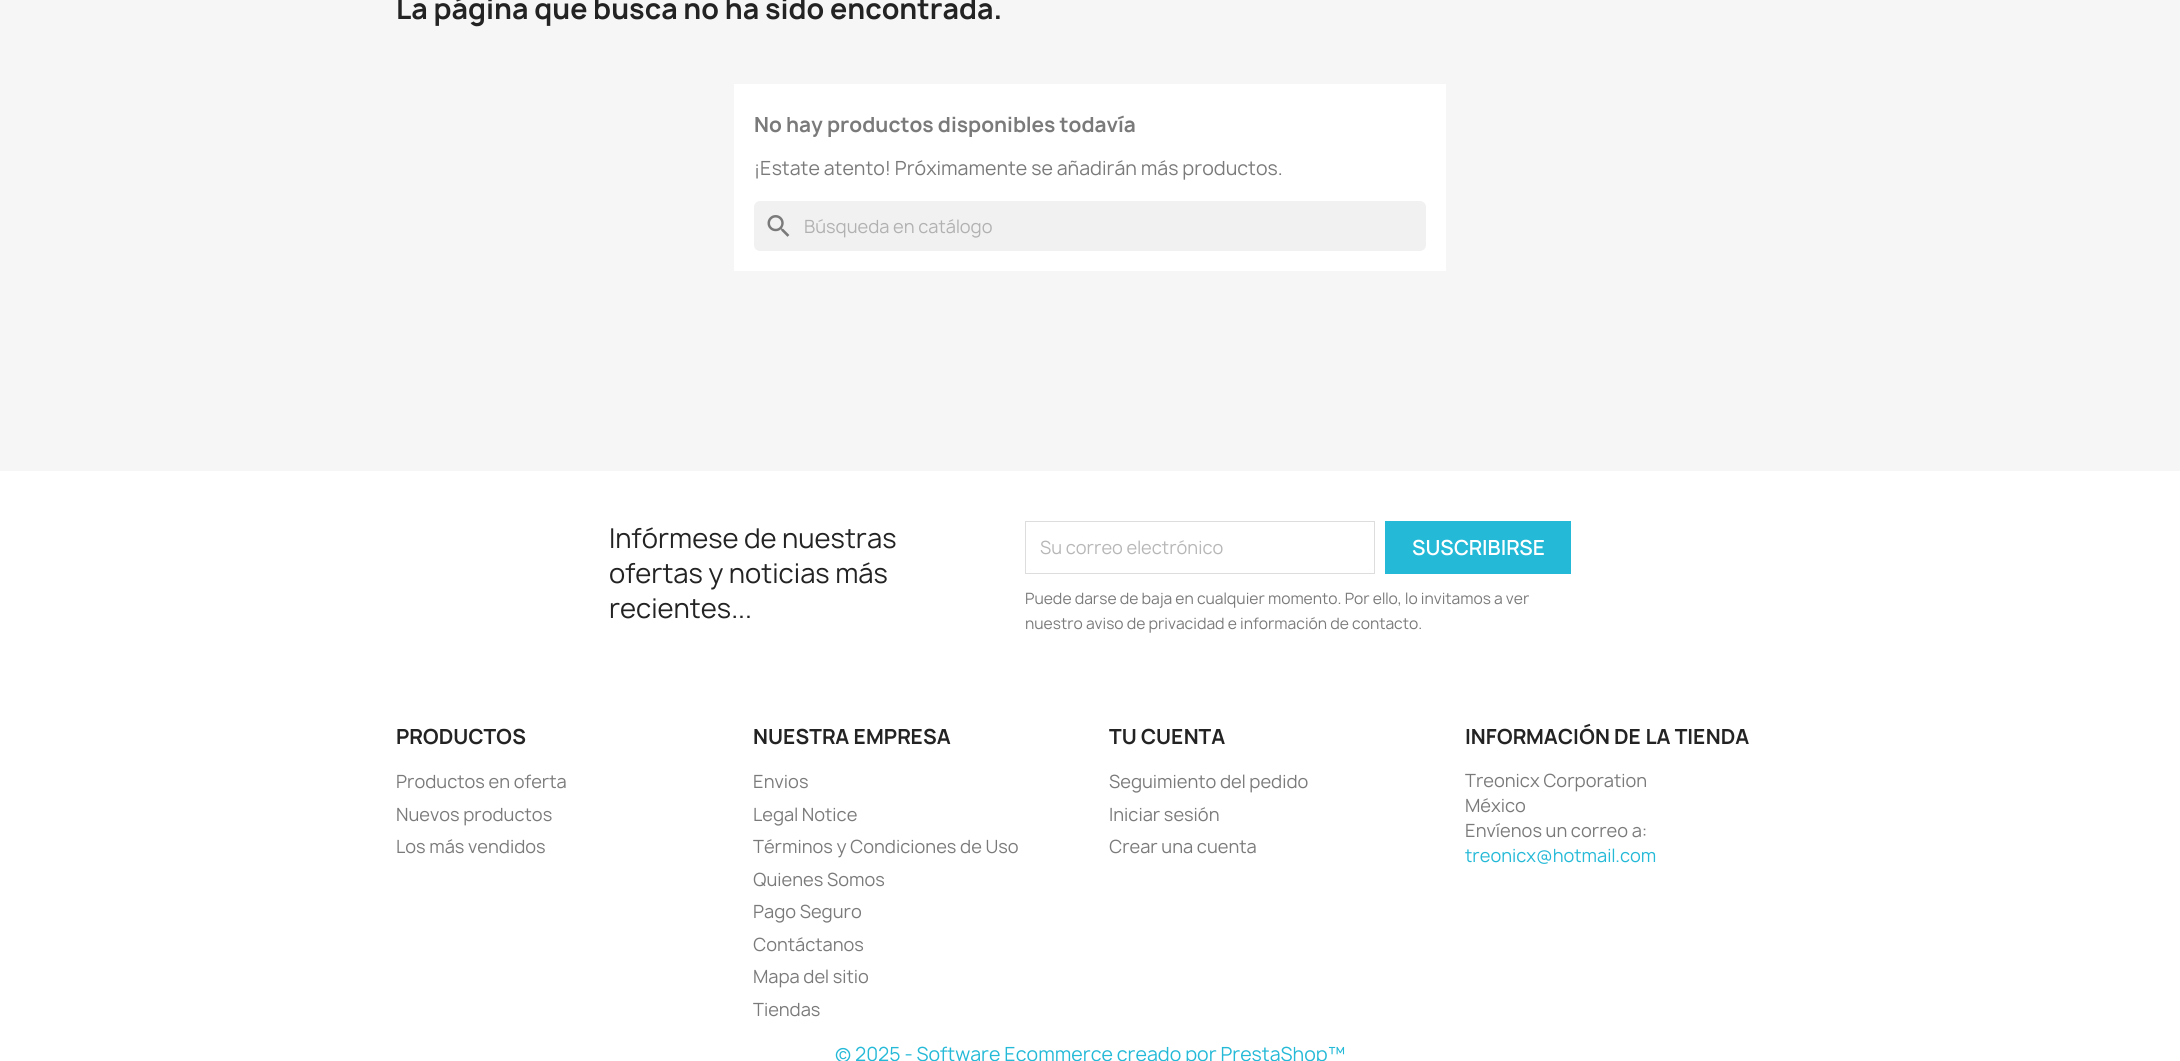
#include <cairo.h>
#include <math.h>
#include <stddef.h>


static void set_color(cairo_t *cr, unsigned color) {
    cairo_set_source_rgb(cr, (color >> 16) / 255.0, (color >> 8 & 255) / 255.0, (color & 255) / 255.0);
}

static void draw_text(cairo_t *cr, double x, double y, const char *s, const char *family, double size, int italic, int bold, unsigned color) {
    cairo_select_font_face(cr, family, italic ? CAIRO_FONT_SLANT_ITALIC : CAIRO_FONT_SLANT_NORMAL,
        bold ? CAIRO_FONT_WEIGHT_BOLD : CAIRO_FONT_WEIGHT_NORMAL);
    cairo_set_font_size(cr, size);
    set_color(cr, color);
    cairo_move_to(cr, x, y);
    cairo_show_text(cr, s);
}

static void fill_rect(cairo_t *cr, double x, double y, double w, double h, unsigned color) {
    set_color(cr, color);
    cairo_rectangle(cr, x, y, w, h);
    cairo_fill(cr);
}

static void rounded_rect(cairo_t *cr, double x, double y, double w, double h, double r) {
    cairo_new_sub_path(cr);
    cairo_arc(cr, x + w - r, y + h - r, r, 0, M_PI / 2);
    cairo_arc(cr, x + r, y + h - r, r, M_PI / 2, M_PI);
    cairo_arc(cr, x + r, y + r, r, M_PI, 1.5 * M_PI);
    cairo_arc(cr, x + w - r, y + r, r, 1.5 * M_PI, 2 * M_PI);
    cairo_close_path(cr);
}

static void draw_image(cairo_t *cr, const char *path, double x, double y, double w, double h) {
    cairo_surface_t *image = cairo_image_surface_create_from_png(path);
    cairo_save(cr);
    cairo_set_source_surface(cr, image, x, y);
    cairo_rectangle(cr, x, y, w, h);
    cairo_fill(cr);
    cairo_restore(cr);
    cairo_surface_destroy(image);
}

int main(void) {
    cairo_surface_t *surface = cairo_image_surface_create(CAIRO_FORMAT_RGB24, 2180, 1061);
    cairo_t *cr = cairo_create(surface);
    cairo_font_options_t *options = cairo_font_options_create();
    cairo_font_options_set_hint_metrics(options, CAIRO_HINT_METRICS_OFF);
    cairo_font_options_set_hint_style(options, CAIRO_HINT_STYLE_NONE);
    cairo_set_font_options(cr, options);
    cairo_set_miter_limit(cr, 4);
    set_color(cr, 0xFFFFFF);
    cairo_paint(cr);
    fill_rect(cr, 0, 0, 2180, 471, 0xF6F6F6);
    draw_text(cr, 396, 19, "La página que busca no ha sido encontrada.", "Manrope", 27.5, 0, 1, 0x232323);
    fill_rect(cr, 734, 84, 712, 187, 0xFFFFFF);
    draw_text(cr, 754, 132, "No hay productos disponibles todavía", "Manrope", 20, 0, 1, 0x7A7A7A);
    draw_text(cr, 754, 175, "¡Estate atento! Próximamente se añadirán más productos.", "Manrope", 18.75, 0, 0, 0x7A7A7A);
    set_color(cr, 0xF1F1F1);
    rounded_rect(cr, 754, 201, 672, 50, 6);
    cairo_fill(cr);
    draw_image(cr, "assets/img1.png", 767, 215, 23, 22);
    draw_text(cr, 804, 233, "Búsqueda en catálogo", "Manrope", 17.5, 0, 0, 0xB1B1B1);
    draw_text(cr, 609, 548, "Infórmese de nuestras", "Manrope", 26.25, 0, 0, 0x232323);
    draw_text(cr, 609, 583, "ofertas y noticias más", "Manrope", 26.25, 0, 0, 0x232323);
    draw_text(cr, 609, 618, "recientes...", "Manrope", 26.25, 0, 0, 0x232323);
    cairo_rectangle(cr, 1025.5, 521.5, 349, 52);
    set_color(cr, 0xDDDDDD);
    cairo_set_line_width(cr, 1);
    cairo_stroke(cr);
    draw_text(cr, 1040, 554, "Su correo electrónico", "Manrope", 17.5, 0, 0, 0xB7B7B7);
    fill_rect(cr, 1385, 521, 186, 53, 0x24B9D7);
    draw_text(cr, 1412, 555, "SUSCRIBIRSE", "Manrope SemiBold", 20, 0, 0, 0xFFFFFF);
    draw_text(cr, 1025, 604, "Puede darse de baja en cualquier momento. Por ello, lo invitamos a ver", "Manrope", 15, 0, 0, 0x7A7A7A);
    draw_text(cr, 1025, 629, "nuestro aviso de privacidad e información de contacto.", "Manrope", 15, 0, 0, 0x7A7A7A);
    draw_text(cr, 396, 744, "PRODUCTOS", "Manrope", 20, 0, 1, 0x232323);
    draw_text(cr, 396, 788, "Productos en oferta", "Manrope", 17.5, 0, 0, 0x7A7A7A);
    draw_text(cr, 396, 821, "Nuevos productos", "Manrope", 17.5, 0, 0, 0x7A7A7A);
    draw_text(cr, 396, 853, "Los más vendidos", "Manrope", 17.5, 0, 0, 0x7A7A7A);
    draw_text(cr, 753, 744, "NUESTRA EMPRESA", "Manrope", 20, 0, 1, 0x232323);
    draw_text(cr, 753, 788, "Envios", "Manrope", 17.5, 0, 0, 0x7A7A7A);
    draw_text(cr, 753, 821, "Legal Notice", "Manrope", 17.5, 0, 0, 0x7A7A7A);
    draw_text(cr, 753, 853, "Términos y Condiciones de Uso", "Manrope", 17.5, 0, 0, 0x7A7A7A);
    draw_text(cr, 753, 886, "Quienes Somos", "Manrope", 17.5, 0, 0, 0x7A7A7A);
    draw_text(cr, 753, 918, "Pago Seguro", "Manrope", 17.5, 0, 0, 0x7A7A7A);
    draw_text(cr, 753, 951, "Contáctanos", "Manrope", 17.5, 0, 0, 0x7A7A7A);
    draw_text(cr, 753, 983, "Mapa del sitio", "Manrope", 17.5, 0, 0, 0x7A7A7A);
    draw_text(cr, 753, 1016, "Tiendas", "Manrope", 17.5, 0, 0, 0x7A7A7A);
    draw_text(cr, 1109, 744, "TU CUENTA", "Manrope", 20, 0, 1, 0x232323);
    draw_text(cr, 1109, 788, "Seguimiento del pedido", "Manrope", 17.5, 0, 0, 0x7A7A7A);
    draw_text(cr, 1109, 821, "Iniciar sesión", "Manrope", 17.5, 0, 0, 0x7A7A7A);
    draw_text(cr, 1109, 853, "Crear una cuenta", "Manrope", 17.5, 0, 0, 0x7A7A7A);
    draw_text(cr, 1465, 744, "INFORMACIÓN DE LA TIENDA", "Manrope", 20, 0, 1, 0x232323);
    draw_text(cr, 1465, 787, "Treonicx Corporation", "Manrope", 17.5, 0, 0, 0x7A7A7A);
    draw_text(cr, 1465, 812, "México", "Manrope", 17.5, 0, 0, 0x7A7A7A);
    draw_text(cr, 1465, 837, "Envíenos un correo a:", "Manrope", 17.5, 0, 0, 0x7A7A7A);
    draw_text(cr, 1465, 862, "treonicx@hotmail.com", "Manrope", 17.5, 0, 0, 0x24B9D7);
    draw_text(cr, 835, 1061, "© 2025 - Software Ecommerce creado por PrestaShop™", "Manrope", 18.75, 0, 0, 0x24B9D7);
    cairo_surface_write_to_png(surface, "output.png");
    cairo_font_options_destroy(options);
    cairo_destroy(cr);
    cairo_surface_destroy(surface);
    return 0;
}
